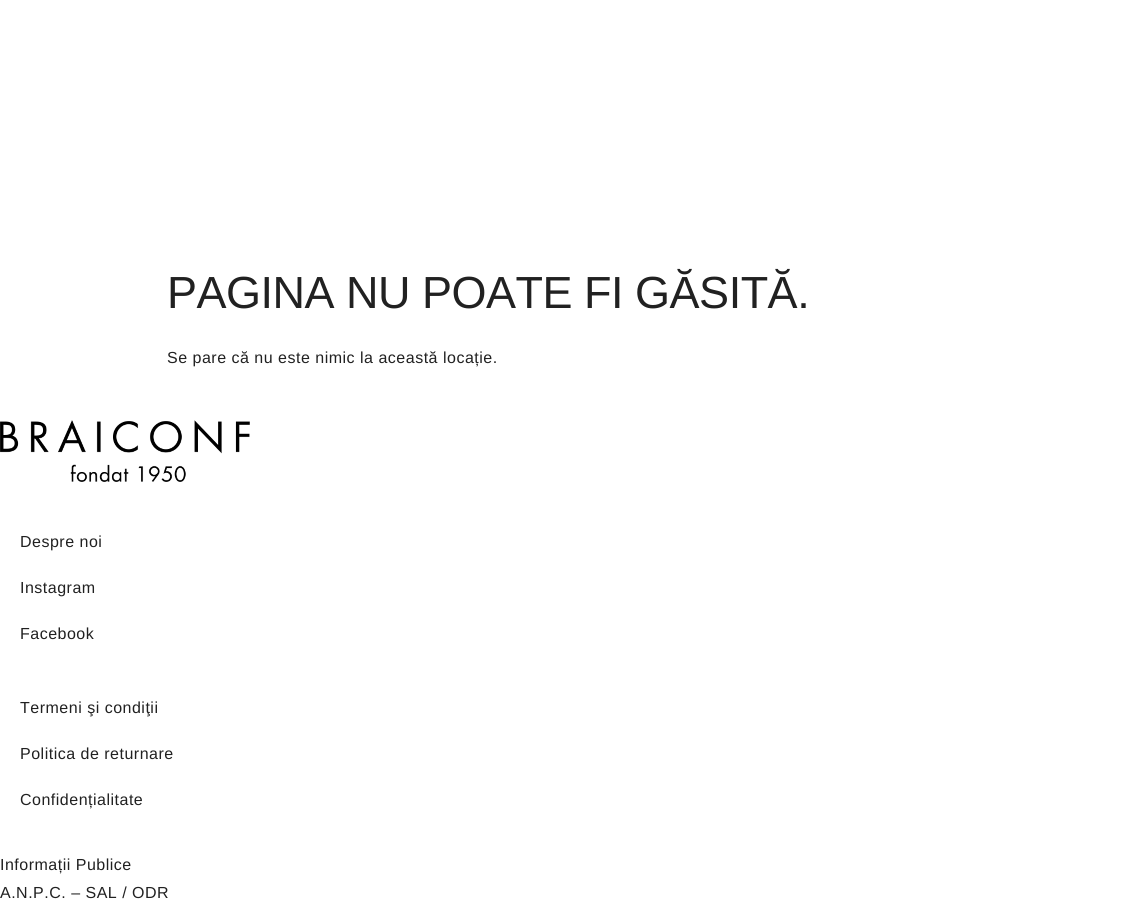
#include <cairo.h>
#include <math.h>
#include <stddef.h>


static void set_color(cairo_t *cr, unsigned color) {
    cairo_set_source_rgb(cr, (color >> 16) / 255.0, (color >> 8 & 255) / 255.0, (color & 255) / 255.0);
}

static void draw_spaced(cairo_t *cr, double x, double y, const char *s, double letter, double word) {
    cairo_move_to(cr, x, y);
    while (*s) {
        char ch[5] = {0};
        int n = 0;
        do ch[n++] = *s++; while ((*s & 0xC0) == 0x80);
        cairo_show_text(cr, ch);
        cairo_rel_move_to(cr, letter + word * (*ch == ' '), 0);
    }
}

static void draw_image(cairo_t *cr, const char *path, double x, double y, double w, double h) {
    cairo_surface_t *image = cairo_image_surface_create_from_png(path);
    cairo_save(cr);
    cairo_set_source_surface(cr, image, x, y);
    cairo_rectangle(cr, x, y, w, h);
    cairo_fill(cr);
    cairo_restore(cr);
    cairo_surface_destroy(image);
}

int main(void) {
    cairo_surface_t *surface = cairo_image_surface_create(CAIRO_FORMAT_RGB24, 1133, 921);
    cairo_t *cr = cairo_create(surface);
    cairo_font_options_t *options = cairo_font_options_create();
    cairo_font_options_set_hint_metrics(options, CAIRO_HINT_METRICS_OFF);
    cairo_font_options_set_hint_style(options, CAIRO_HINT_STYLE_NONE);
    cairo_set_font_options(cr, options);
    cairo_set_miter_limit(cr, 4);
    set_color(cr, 0xFFFFFF);
    cairo_paint(cr);
    cairo_select_font_face(cr, "Liberation Sans", CAIRO_FONT_SLANT_NORMAL, CAIRO_FONT_WEIGHT_NORMAL);
    cairo_set_font_size(cr, 45);
    set_color(cr, 0x212121);
    draw_spaced(cr, 167, 308, "PAGINA NU POATE FI GĂSITĂ.", -0.5, 0);
    cairo_set_font_size(cr, 16);
    draw_spaced(cr, 167, 363, "Se pare că nu este nimic la această locație.", 0.5, 0);
    draw_image(cr, "assets/img1.png", 0, 420, 250, 62);
    draw_spaced(cr, 20, 547, "Despre noi", 0.5, 0);
    draw_spaced(cr, 20, 593, "Instagram", 0.5, 0);
    draw_spaced(cr, 20, 639, "Facebook", 0.5, 0);
    draw_spaced(cr, 20, 713, "Termeni şi condiţii", 0.5, 0);
    draw_spaced(cr, 20, 759, "Politica de returnare", 0.5, 0);
    draw_spaced(cr, 20, 805, "Confidențialitate", 0.5, 0);
    draw_spaced(cr, 0, 870, "Informații Publice", 0.5, 0);
    draw_spaced(cr, 0, 898, "A.N.P.C. – SAL / ODR", 0.5, 0);
    cairo_surface_write_to_png(surface, "output.png");
    cairo_font_options_destroy(options);
    cairo_destroy(cr);
    cairo_surface_destroy(surface);
    return 0;
}
